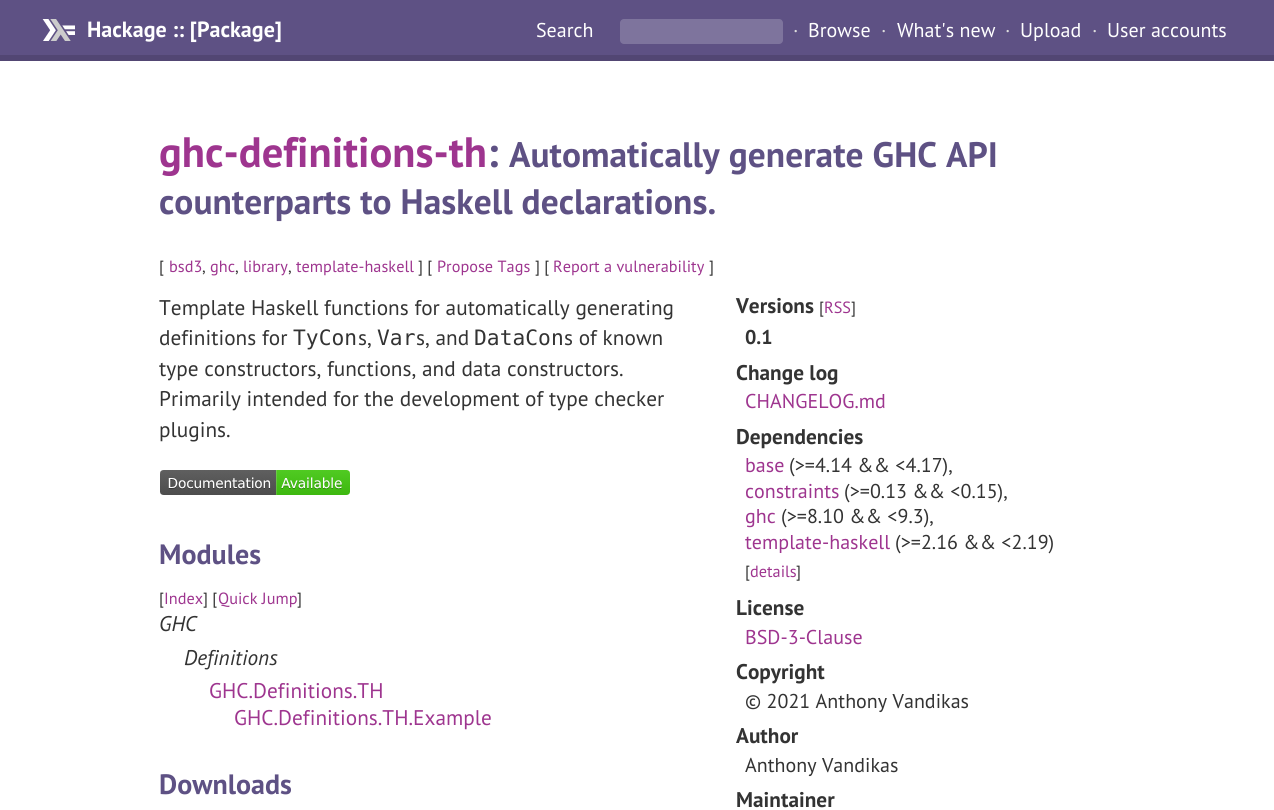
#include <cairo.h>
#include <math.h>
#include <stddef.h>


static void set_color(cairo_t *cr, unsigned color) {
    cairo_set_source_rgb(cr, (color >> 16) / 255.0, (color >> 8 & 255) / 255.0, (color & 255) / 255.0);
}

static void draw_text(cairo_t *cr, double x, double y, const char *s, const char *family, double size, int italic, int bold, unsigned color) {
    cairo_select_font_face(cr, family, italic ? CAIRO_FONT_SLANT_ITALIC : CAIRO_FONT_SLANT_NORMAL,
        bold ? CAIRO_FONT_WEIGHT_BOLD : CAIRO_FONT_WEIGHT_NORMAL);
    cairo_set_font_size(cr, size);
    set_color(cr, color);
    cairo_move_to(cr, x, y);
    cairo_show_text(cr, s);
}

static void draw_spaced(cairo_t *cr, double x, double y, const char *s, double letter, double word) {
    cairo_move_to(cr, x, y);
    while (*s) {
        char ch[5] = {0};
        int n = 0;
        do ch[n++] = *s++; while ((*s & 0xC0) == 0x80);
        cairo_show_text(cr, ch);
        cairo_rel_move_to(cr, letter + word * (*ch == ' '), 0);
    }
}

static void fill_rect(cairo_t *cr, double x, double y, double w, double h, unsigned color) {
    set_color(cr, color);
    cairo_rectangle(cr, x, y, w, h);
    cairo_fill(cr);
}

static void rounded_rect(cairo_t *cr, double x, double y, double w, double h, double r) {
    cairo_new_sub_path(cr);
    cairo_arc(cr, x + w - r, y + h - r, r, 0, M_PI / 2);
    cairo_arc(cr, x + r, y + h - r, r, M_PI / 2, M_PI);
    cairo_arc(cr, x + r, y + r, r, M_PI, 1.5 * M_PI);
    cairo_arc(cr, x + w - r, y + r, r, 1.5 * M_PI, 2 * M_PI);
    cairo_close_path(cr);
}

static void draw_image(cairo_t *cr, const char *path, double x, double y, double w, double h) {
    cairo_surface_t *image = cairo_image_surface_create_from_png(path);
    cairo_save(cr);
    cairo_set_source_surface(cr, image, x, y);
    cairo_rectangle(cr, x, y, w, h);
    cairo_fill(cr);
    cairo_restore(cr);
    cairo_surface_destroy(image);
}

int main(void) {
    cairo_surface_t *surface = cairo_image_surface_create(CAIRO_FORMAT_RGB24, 1274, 810);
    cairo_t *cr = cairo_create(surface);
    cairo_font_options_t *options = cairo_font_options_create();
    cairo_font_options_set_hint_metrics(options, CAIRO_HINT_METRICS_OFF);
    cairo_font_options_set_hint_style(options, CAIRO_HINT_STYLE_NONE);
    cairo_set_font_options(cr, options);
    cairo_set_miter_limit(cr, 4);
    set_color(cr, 0xFFFFFF);
    cairo_paint(cr);
    fill_rect(cr, 0, 0, 1274, 55, 0x5E5184);
    fill_rect(cr, 0, 55, 1274, 6, 0x524673);
    draw_image(cr, "assets/img1.png", 42, 19, 33, 22);
    cairo_select_font_face(cr, "PT Sans", CAIRO_FONT_SLANT_NORMAL, CAIRO_FONT_WEIGHT_BOLD);
    cairo_set_font_size(cr, 22);
    set_color(cr, 0xFFFFFF);
    draw_spaced(cr, 87, 37, "Hackage :: [Package]", 0.03, 0);
    draw_text(cr, 536, 37, "Search", "PT Sans", 20, 0, 0, 0xFFFFFF);
    set_color(cr, 0x7E749D);
    rounded_rect(cr, 620, 19, 163, 25, 4);
    cairo_fill(cr);
    set_color(cr, 0xDDDDDD);
    draw_spaced(cr, 793, 37, "·", 0.03, 0);
    set_color(cr, 0xFFFFFF);
    draw_spaced(cr, 808, 37, "Browse", 0.03, 0);
    set_color(cr, 0xDDDDDD);
    draw_spaced(cr, 881, 37, "·", 0.03, 0);
    set_color(cr, 0xFFFFFF);
    draw_spaced(cr, 897, 37, "What's new", 0.03, 0);
    set_color(cr, 0xDDDDDD);
    draw_spaced(cr, 1005, 37, "·", 0.03, 0);
    set_color(cr, 0xFFFFFF);
    draw_spaced(cr, 1020, 37, "Upload", 0.03, 0);
    set_color(cr, 0xDDDDDD);
    draw_spaced(cr, 1092, 37, "·", 0.03, 0);
    set_color(cr, 0xFFFFFF);
    draw_spaced(cr, 1107, 37, "User accounts", 0.03, 0);
    cairo_select_font_face(cr, "PT Sans", CAIRO_FONT_SLANT_NORMAL, CAIRO_FONT_WEIGHT_BOLD);
    cairo_set_font_size(cr, 42.5);
    set_color(cr, 0x9E358F);
    draw_spaced(cr, 159, 167, "ghc-definitions-th", 0.03, 0);
    set_color(cr, 0x5E5184);
    draw_spaced(cr, 487, 167, ":", 0.03, 0);
    cairo_set_font_size(cr, 35.4);
    draw_spaced(cr, 509, 167, "Automatically generate GHC API", 0.03, 0);
    draw_spaced(cr, 159, 214, "counterparts to Haskell declarations.", 0.03, 0);
    cairo_select_font_face(cr, "PT Sans", CAIRO_FONT_SLANT_NORMAL, CAIRO_FONT_WEIGHT_NORMAL);
    cairo_set_font_size(cr, 16.25);
    set_color(cr, 0x333333);
    draw_spaced(cr, 159, 272, "[", 0.03, 0);
    set_color(cr, 0x9E358F);
    draw_spaced(cr, 169, 272, "bsd3", 0.03, 0);
    set_color(cr, 0x333333);
    draw_spaced(cr, 202, 272, ",", 0.03, 0);
    set_color(cr, 0x9E358F);
    draw_spaced(cr, 210, 272, "ghc", 0.03, 0);
    set_color(cr, 0x333333);
    draw_spaced(cr, 235, 272, ",", 0.03, 0);
    set_color(cr, 0x9E358F);
    draw_spaced(cr, 243, 272, "library", 0.03, 0);
    set_color(cr, 0x333333);
    draw_spaced(cr, 288, 272, ",", 0.03, 0);
    set_color(cr, 0x9E358F);
    draw_spaced(cr, 296, 272, "template-haskell", 0.03, 0);
    set_color(cr, 0x333333);
    draw_spaced(cr, 418, 272, "] [", 0.03, 0);
    set_color(cr, 0x9E358F);
    draw_spaced(cr, 437, 272, "Propose Tags", 0.03, 0);
    set_color(cr, 0x333333);
    draw_spaced(cr, 535, 272, "] [", 0.03, 0);
    set_color(cr, 0x9E358F);
    draw_spaced(cr, 553, 272, "Report a vulnerability", 0.03, 0);
    set_color(cr, 0x333333);
    draw_spaced(cr, 709, 272, "]", 0.03, 0);
    cairo_set_font_size(cr, 21.25);
    draw_spaced(cr, 159, 315, "Template Haskell functions for automatically generating", 0.03, 0);
    draw_spaced(cr, 159, 345, "definitions for", 0.03, 0);
    cairo_select_font_face(cr, "DejaVu Sans Mono", CAIRO_FONT_SLANT_NORMAL, CAIRO_FONT_WEIGHT_NORMAL);
    draw_spaced(cr, 293, 345, "TyCon", 0.03, 0);
    cairo_select_font_face(cr, "PT Sans", CAIRO_FONT_SLANT_NORMAL, CAIRO_FONT_WEIGHT_NORMAL);
    draw_spaced(cr, 358, 345, "s,", 0.03, 0);
    cairo_select_font_face(cr, "DejaVu Sans Mono", CAIRO_FONT_SLANT_NORMAL, CAIRO_FONT_WEIGHT_NORMAL);
    draw_spaced(cr, 377, 345, "Var", 0.03, 0);
    cairo_select_font_face(cr, "PT Sans", CAIRO_FONT_SLANT_NORMAL, CAIRO_FONT_WEIGHT_NORMAL);
    draw_spaced(cr, 416, 345, "s, and", 0.03, 0);
    cairo_select_font_face(cr, "DejaVu Sans Mono", CAIRO_FONT_SLANT_NORMAL, CAIRO_FONT_WEIGHT_NORMAL);
    draw_spaced(cr, 474, 345, "DataCon", 0.03, 0);
    cairo_select_font_face(cr, "PT Sans", CAIRO_FONT_SLANT_NORMAL, CAIRO_FONT_WEIGHT_NORMAL);
    draw_spaced(cr, 564, 345, "s of known", 0.03, 0);
    draw_spaced(cr, 159, 376, "type constructors, functions, and data constructors.", 0.03, 0);
    draw_spaced(cr, 159, 406, "Primarily intended for the development of type checker", 0.03, 0);
    draw_spaced(cr, 159, 437, "plugins.", 0.03, 0);
    draw_image(cr, "assets/img2.png", 160, 470, 190, 25);
    cairo_select_font_face(cr, "PT Sans", CAIRO_FONT_SLANT_NORMAL, CAIRO_FONT_WEIGHT_BOLD);
    cairo_set_font_size(cr, 28);
    set_color(cr, 0x5E5184);
    draw_spaced(cr, 159, 564, "Modules", 0.03, 0);
    cairo_select_font_face(cr, "PT Sans", CAIRO_FONT_SLANT_NORMAL, CAIRO_FONT_WEIGHT_NORMAL);
    cairo_set_font_size(cr, 16.25);
    set_color(cr, 0x333333);
    draw_spaced(cr, 159, 604, "[", 0.03, 0);
    set_color(cr, 0x9E358F);
    draw_spaced(cr, 164, 604, "Index", 0.03, 0);
    set_color(cr, 0x333333);
    draw_spaced(cr, 203, 604, "] [", 0.03, 0);
    set_color(cr, 0x9E358F);
    draw_spaced(cr, 218, 604, "Quick Jump", 0.03, 0);
    set_color(cr, 0x333333);
    draw_spaced(cr, 297, 604, "]", 0.03, 0);
    cairo_select_font_face(cr, "PT Sans", CAIRO_FONT_SLANT_ITALIC, CAIRO_FONT_WEIGHT_NORMAL);
    cairo_set_font_size(cr, 21.25);
    draw_spaced(cr, 159, 631, "GHC", 0.03, 0);
    draw_spaced(cr, 184, 665, "Definitions", 0.03, 0);
    cairo_select_font_face(cr, "PT Sans", CAIRO_FONT_SLANT_NORMAL, CAIRO_FONT_WEIGHT_NORMAL);
    set_color(cr, 0x9E358F);
    draw_spaced(cr, 209, 698, "GHC.Definitions.TH", 0.03, 0);
    draw_spaced(cr, 234, 725, "GHC.Definitions.TH.Example", 0.03, 0);
    cairo_select_font_face(cr, "PT Sans", CAIRO_FONT_SLANT_NORMAL, CAIRO_FONT_WEIGHT_BOLD);
    cairo_set_font_size(cr, 28);
    set_color(cr, 0x5E5184);
    draw_spaced(cr, 159, 794, "Downloads", 0.03, 0);
    cairo_set_font_size(cr, 21.25);
    set_color(cr, 0x333333);
    draw_spaced(cr, 736, 313, "Versions", 0.03, 0);
    cairo_select_font_face(cr, "PT Sans", CAIRO_FONT_SLANT_NORMAL, CAIRO_FONT_WEIGHT_NORMAL);
    cairo_set_font_size(cr, 16.25);
    draw_spaced(cr, 819, 313, "[", 0.03, 0);
    set_color(cr, 0x9E358F);
    draw_spaced(cr, 824, 313, "RSS", 0.03, 0);
    set_color(cr, 0x333333);
    draw_spaced(cr, 851, 313, "]", 0.03, 0);
    cairo_select_font_face(cr, "PT Sans", CAIRO_FONT_SLANT_NORMAL, CAIRO_FONT_WEIGHT_BOLD);
    cairo_set_font_size(cr, 20);
    draw_spaced(cr, 745, 344, "0.1", 0.03, 0);
    cairo_set_font_size(cr, 21.25);
    draw_spaced(cr, 736, 380, "Change log", 0.03, 0);
    cairo_select_font_face(cr, "PT Sans", CAIRO_FONT_SLANT_NORMAL, CAIRO_FONT_WEIGHT_NORMAL);
    cairo_set_font_size(cr, 20);
    set_color(cr, 0x9E358F);
    draw_spaced(cr, 745, 408, "CHANGELOG.md", 0.03, 0);
    cairo_select_font_face(cr, "PT Sans", CAIRO_FONT_SLANT_NORMAL, CAIRO_FONT_WEIGHT_BOLD);
    cairo_set_font_size(cr, 21.25);
    set_color(cr, 0x333333);
    draw_spaced(cr, 736, 444, "Dependencies", 0.03, 0);
    cairo_select_font_face(cr, "PT Sans", CAIRO_FONT_SLANT_NORMAL, CAIRO_FONT_WEIGHT_NORMAL);
    cairo_set_font_size(cr, 20);
    set_color(cr, 0x9E358F);
    draw_spaced(cr, 745, 472, "base", 0.03, 0);
    set_color(cr, 0x333333);
    draw_spaced(cr, 789, 472, "(>=4.14 && <4.17),", 0.03, 0);
    set_color(cr, 0x9E358F);
    draw_spaced(cr, 745, 498, "constraints", 0.03, 0);
    set_color(cr, 0x333333);
    draw_spaced(cr, 844, 498, "(>=0.13 && <0.15),", 0.03, 0);
    set_color(cr, 0x9E358F);
    draw_spaced(cr, 745, 523, "ghc", 0.03, 0);
    set_color(cr, 0x333333);
    draw_spaced(cr, 781, 523, "(>=8.10 && <9.3),", 0.03, 0);
    set_color(cr, 0x9E358F);
    draw_spaced(cr, 745, 549, "template-haskell", 0.03, 0);
    set_color(cr, 0x333333);
    draw_spaced(cr, 895, 549, "(>=2.16 && <2.19)", 0.03, 0);
    cairo_set_font_size(cr, 16.25);
    draw_spaced(cr, 745, 577, "[", 0.03, 0);
    set_color(cr, 0x9E358F);
    draw_spaced(cr, 750, 577, "details", 0.03, 0);
    set_color(cr, 0x333333);
    draw_spaced(cr, 796, 577, "]", 0.03, 0);
    cairo_select_font_face(cr, "PT Sans", CAIRO_FONT_SLANT_NORMAL, CAIRO_FONT_WEIGHT_BOLD);
    cairo_set_font_size(cr, 21.25);
    draw_spaced(cr, 736, 615, "License", 0.03, 0);
    cairo_select_font_face(cr, "PT Sans", CAIRO_FONT_SLANT_NORMAL, CAIRO_FONT_WEIGHT_NORMAL);
    cairo_set_font_size(cr, 20);
    set_color(cr, 0x9E358F);
    draw_spaced(cr, 745, 644, "BSD-3-Clause", 0.03, 0);
    cairo_select_font_face(cr, "PT Sans", CAIRO_FONT_SLANT_NORMAL, CAIRO_FONT_WEIGHT_BOLD);
    cairo_set_font_size(cr, 21.25);
    set_color(cr, 0x333333);
    draw_spaced(cr, 736, 679, "Copyright", 0.03, 0);
    cairo_select_font_face(cr, "PT Sans", CAIRO_FONT_SLANT_NORMAL, CAIRO_FONT_WEIGHT_NORMAL);
    cairo_set_font_size(cr, 20);
    draw_spaced(cr, 745, 708, "© 2021 Anthony Vandikas", 0.03, 0);
    cairo_select_font_face(cr, "PT Sans", CAIRO_FONT_SLANT_NORMAL, CAIRO_FONT_WEIGHT_BOLD);
    cairo_set_font_size(cr, 21.25);
    draw_spaced(cr, 736, 743, "Author", 0.03, 0);
    cairo_select_font_face(cr, "PT Sans", CAIRO_FONT_SLANT_NORMAL, CAIRO_FONT_WEIGHT_NORMAL);
    cairo_set_font_size(cr, 20);
    draw_spaced(cr, 745, 772, "Anthony Vandikas", 0.03, 0);
    cairo_select_font_face(cr, "PT Sans", CAIRO_FONT_SLANT_NORMAL, CAIRO_FONT_WEIGHT_BOLD);
    cairo_set_font_size(cr, 21.25);
    draw_spaced(cr, 736, 807, "Maintainer", 0.03, 0);
    cairo_surface_write_to_png(surface, "output.png");
    cairo_font_options_destroy(options);
    cairo_destroy(cr);
    cairo_surface_destroy(surface);
    return 0;
}
